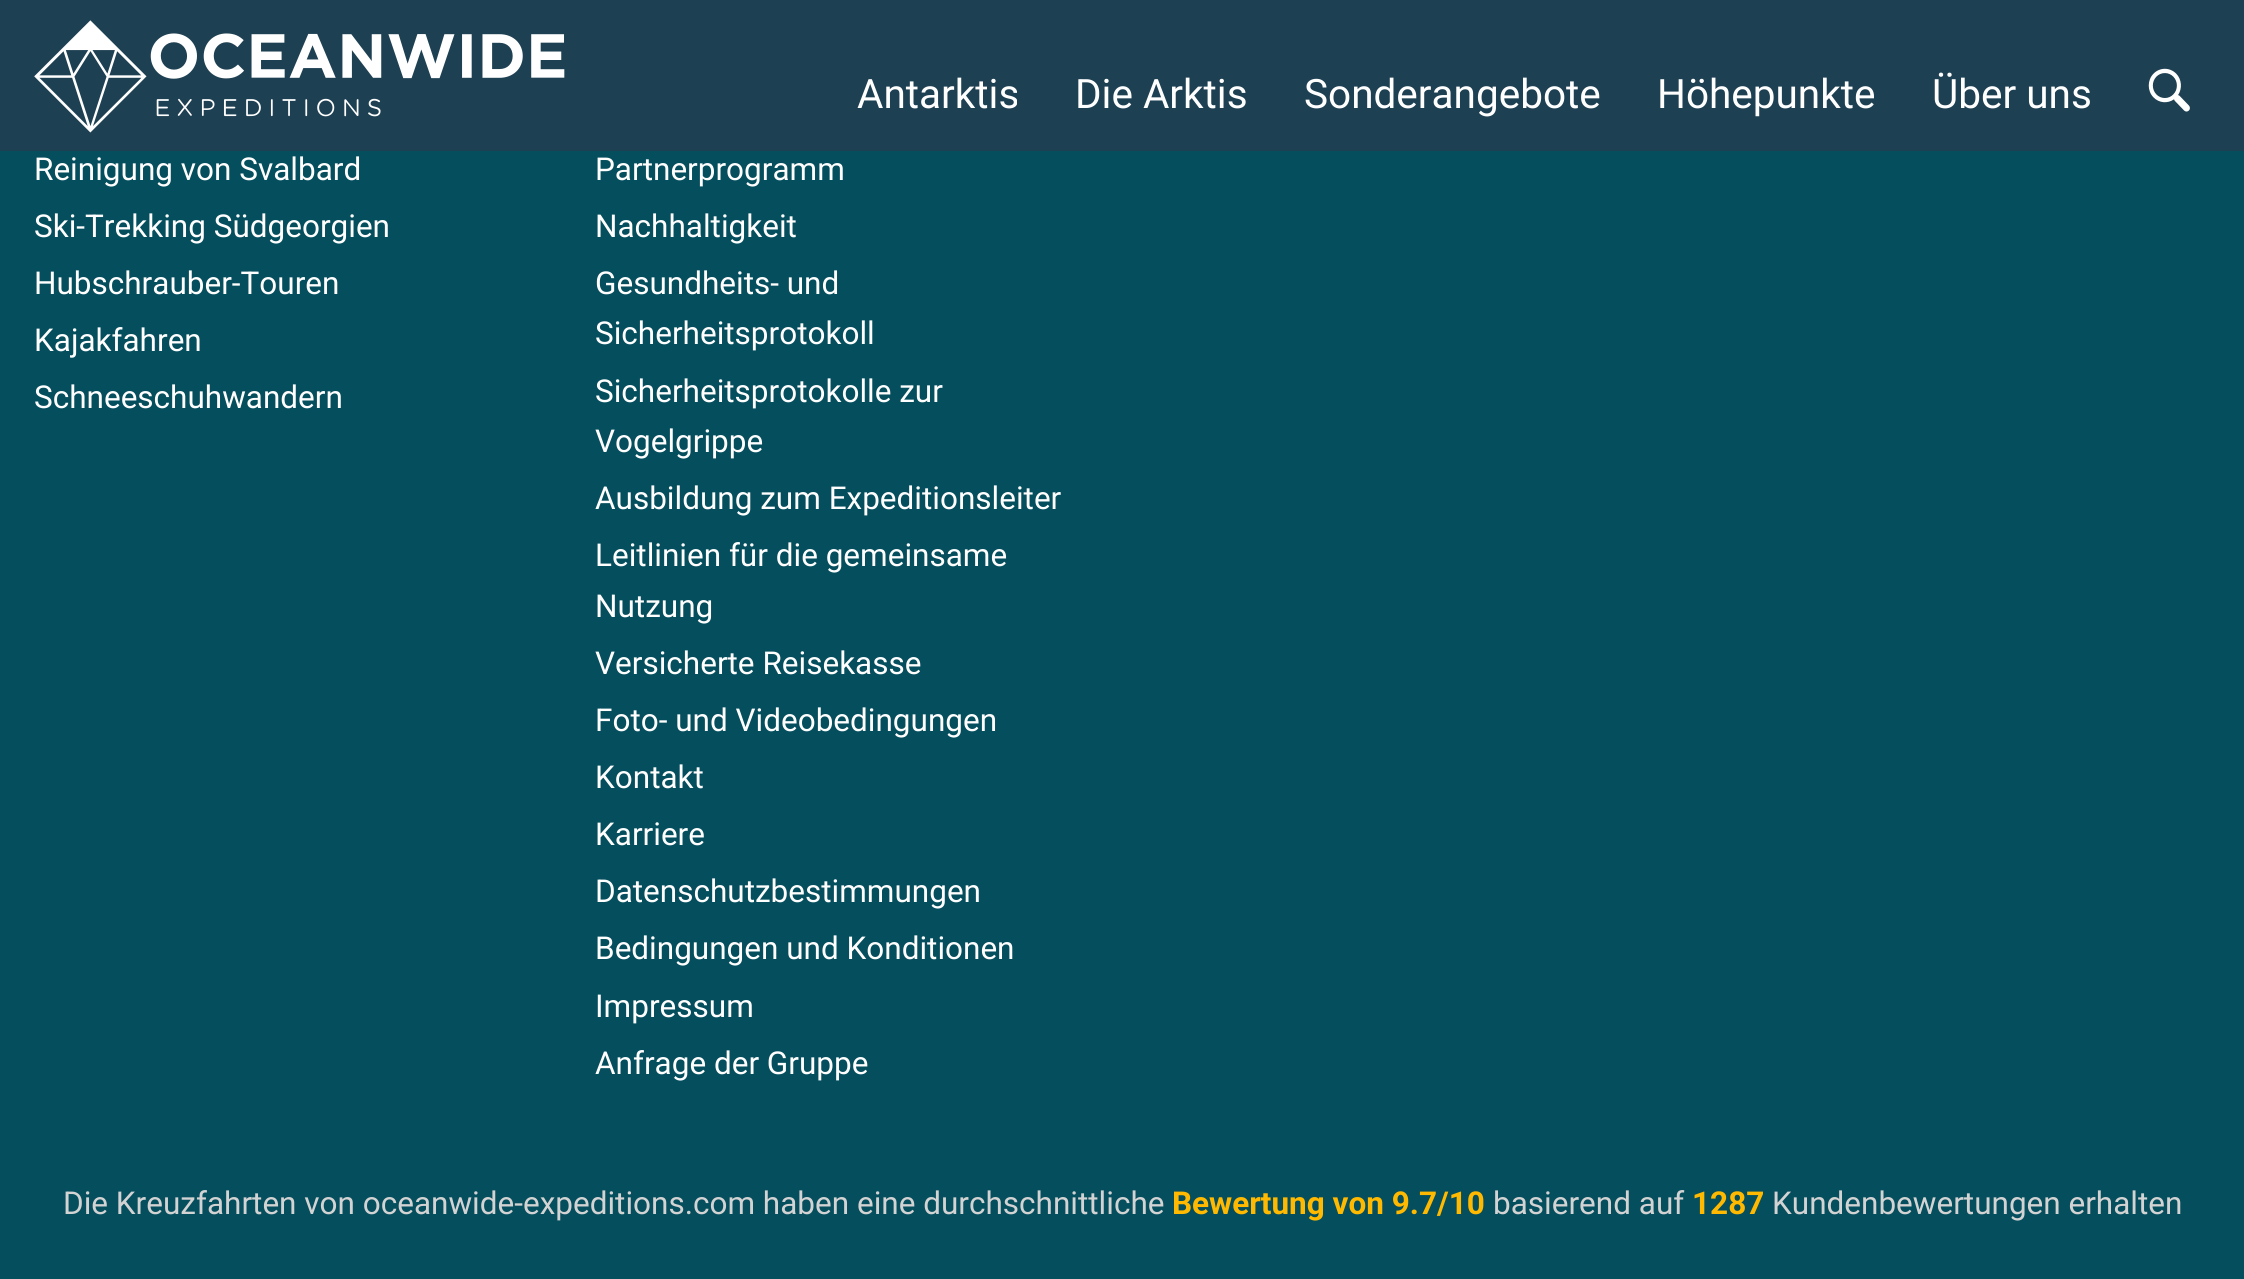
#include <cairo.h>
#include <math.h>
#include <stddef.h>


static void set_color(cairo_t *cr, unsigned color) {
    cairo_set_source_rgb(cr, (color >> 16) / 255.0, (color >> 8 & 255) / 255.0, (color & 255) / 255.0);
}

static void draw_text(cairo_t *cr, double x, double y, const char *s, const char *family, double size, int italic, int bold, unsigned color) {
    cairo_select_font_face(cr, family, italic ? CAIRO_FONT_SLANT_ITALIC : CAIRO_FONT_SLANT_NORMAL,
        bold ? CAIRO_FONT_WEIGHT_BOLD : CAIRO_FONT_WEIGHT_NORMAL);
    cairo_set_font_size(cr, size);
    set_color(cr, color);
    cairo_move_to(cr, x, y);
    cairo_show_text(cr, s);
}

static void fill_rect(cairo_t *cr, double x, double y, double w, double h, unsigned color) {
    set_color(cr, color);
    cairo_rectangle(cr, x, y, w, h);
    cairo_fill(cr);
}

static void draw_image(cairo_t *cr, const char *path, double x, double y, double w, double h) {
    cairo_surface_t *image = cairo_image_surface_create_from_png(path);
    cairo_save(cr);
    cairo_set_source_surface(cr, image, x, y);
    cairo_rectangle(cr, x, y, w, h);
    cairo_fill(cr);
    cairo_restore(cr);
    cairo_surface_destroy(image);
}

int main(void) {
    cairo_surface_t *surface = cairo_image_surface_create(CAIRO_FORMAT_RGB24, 2244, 1279);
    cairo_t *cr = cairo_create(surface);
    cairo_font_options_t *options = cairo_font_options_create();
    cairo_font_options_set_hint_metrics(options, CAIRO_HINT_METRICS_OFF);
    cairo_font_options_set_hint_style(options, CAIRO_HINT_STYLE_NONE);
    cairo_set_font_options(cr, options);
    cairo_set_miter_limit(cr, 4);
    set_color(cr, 0x054E5D);
    cairo_paint(cr);
    fill_rect(cr, 0, 0, 2244, 151, 0x1E4053);
    draw_image(cr, "assets/img1.png", 34, 20, 531, 113);
    draw_text(cr, 857, 108, "Antarktis", "Roboto", 40.5, 0, 0, 0xFFFFFF);
    draw_text(cr, 1075, 108, "Die Arktis", "Roboto", 40.5, 0, 0, 0xFFFFFF);
    draw_text(cr, 1304, 108, "Sonderangebote", "Roboto", 40.5, 0, 0, 0xFFFFFF);
    draw_text(cr, 1657, 108, "Höhepunkte", "Roboto", 40.5, 0, 0, 0xFFFFFF);
    draw_text(cr, 1932, 108, "Über uns", "Roboto", 40.5, 0, 0, 0xFFFFFF);
    draw_image(cr, "assets/img2.png", 2148, 68, 42, 44);
    draw_text(cr, 34, 180, "Reinigung von Svalbard", "Roboto", 31.5, 0, 0, 0xFFFFFF);
    draw_text(cr, 34, 237, "Ski-Trekking Südgeorgien", "Roboto", 31.5, 0, 0, 0xFFFFFF);
    draw_text(cr, 34, 294, "Hubschrauber-Touren", "Roboto", 31.5, 0, 0, 0xFFFFFF);
    draw_text(cr, 34, 351, "Kajakfahren", "Roboto", 31.5, 0, 0, 0xFFFFFF);
    draw_text(cr, 34, 408, "Schneeschuhwandern", "Roboto", 31.5, 0, 0, 0xFFFFFF);
    draw_text(cr, 595, 180, "Partnerprogramm", "Roboto", 31.5, 0, 0, 0xFFFFFF);
    draw_text(cr, 595, 237, "Nachhaltigkeit", "Roboto", 31.5, 0, 0, 0xFFFFFF);
    draw_text(cr, 595, 294, "Gesundheits- und", "Roboto", 31.5, 0, 0, 0xFFFFFF);
    draw_text(cr, 595, 344, "Sicherheitsprotokoll", "Roboto", 31.5, 0, 0, 0xFFFFFF);
    draw_text(cr, 595, 402, "Sicherheitsprotokolle zur", "Roboto", 31.5, 0, 0, 0xFFFFFF);
    draw_text(cr, 595, 452, "Vogelgrippe", "Roboto", 31.5, 0, 0, 0xFFFFFF);
    draw_text(cr, 595, 509, "Ausbildung zum Expeditionsleiter", "Roboto", 31.5, 0, 0, 0xFFFFFF);
    draw_text(cr, 595, 566, "Leitlinien für die gemeinsame", "Roboto", 31.5, 0, 0, 0xFFFFFF);
    draw_text(cr, 595, 617, "Nutzung", "Roboto", 31.5, 0, 0, 0xFFFFFF);
    draw_text(cr, 595, 674, "Versicherte Reisekasse", "Roboto", 31.5, 0, 0, 0xFFFFFF);
    draw_text(cr, 595, 731, "Foto- und Videobedingungen", "Roboto", 31.5, 0, 0, 0xFFFFFF);
    draw_text(cr, 595, 788, "Kontakt", "Roboto", 31.5, 0, 0, 0xFFFFFF);
    draw_text(cr, 595, 845, "Karriere", "Roboto", 31.5, 0, 0, 0xFFFFFF);
    draw_text(cr, 595, 902, "Datenschutzbestimmungen", "Roboto", 31.5, 0, 0, 0xFFFFFF);
    draw_text(cr, 595, 959, "Bedingungen und Konditionen", "Roboto", 31.5, 0, 0, 0xFFFFFF);
    draw_text(cr, 595, 1017, "Impressum", "Roboto", 31.5, 0, 0, 0xFFFFFF);
    draw_text(cr, 595, 1074, "Anfrage der Gruppe", "Roboto", 31.5, 0, 0, 0xFFFFFF);
    draw_text(cr, 63, 1214, "Die Kreuzfahrten von oceanwide-expeditions.com haben eine durchschnittliche", "Roboto", 31.5, 0, 0, 0xD3D3D3);
    draw_text(cr, 1172, 1214, "Bewertung von 9.7/10", "Roboto", 31.5, 0, 1, 0xFFB900);
    draw_text(cr, 1493, 1214, "basierend auf", "Roboto", 31.5, 0, 0, 0xD3D3D3);
    draw_text(cr, 1692, 1214, "1287", "Roboto", 31.5, 0, 1, 0xFFB900);
    draw_text(cr, 1772, 1214, "Kundenbewertungen erhalten", "Roboto", 31.5, 0, 0, 0xD3D3D3);
    cairo_surface_write_to_png(surface, "output.png");
    cairo_font_options_destroy(options);
    cairo_destroy(cr);
    cairo_surface_destroy(surface);
    return 0;
}
